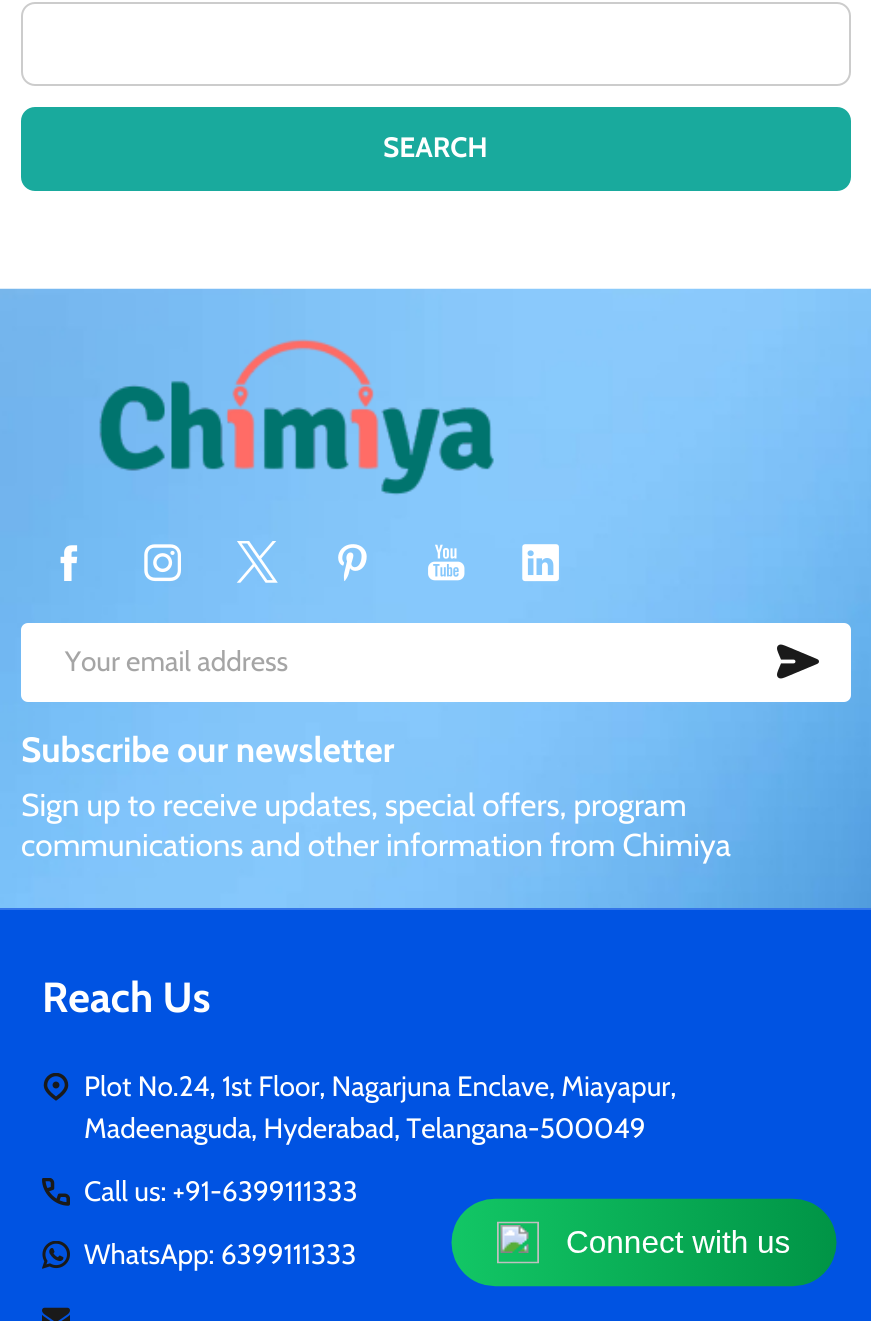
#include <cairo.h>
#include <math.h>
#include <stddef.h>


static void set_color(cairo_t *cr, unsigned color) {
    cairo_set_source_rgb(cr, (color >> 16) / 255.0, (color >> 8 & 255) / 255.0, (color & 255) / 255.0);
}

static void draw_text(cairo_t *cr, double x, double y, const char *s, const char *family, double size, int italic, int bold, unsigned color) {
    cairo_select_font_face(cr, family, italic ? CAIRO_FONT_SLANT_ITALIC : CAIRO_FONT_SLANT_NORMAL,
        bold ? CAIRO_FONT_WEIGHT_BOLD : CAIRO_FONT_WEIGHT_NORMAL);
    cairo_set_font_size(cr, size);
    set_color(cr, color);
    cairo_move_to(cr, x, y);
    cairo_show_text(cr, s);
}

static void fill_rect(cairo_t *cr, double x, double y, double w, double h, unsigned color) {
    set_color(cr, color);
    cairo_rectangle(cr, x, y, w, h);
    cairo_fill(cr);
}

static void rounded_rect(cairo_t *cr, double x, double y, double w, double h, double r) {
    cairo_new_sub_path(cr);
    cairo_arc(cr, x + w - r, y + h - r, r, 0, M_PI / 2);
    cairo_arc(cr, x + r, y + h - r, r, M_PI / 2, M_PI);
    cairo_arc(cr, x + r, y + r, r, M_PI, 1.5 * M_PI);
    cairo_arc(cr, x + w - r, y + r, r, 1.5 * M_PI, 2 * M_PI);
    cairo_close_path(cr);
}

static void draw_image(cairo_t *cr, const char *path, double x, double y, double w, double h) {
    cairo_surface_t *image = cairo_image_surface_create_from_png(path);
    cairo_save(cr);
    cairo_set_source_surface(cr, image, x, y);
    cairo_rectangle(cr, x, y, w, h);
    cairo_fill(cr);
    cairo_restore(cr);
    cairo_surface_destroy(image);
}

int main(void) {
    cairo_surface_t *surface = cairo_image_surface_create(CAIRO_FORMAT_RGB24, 871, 1321);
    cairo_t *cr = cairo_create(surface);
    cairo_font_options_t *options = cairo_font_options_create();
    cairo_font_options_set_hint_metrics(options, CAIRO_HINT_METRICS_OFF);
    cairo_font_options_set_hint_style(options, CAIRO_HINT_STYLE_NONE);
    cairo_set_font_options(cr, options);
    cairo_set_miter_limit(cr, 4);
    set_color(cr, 0xFFFFFF);
    cairo_paint(cr);
    rounded_rect(cr, 22, 3, 828, 82, 13);
    set_color(cr, 0xCCCCCC);
    cairo_stroke(cr);
    set_color(cr, 0x19AA9D);
    rounded_rect(cr, 23, 109, 826, 80, 12);
    cairo_fill_preserve(cr);
    cairo_set_line_width(cr, 4);
    cairo_stroke(cr);
    draw_text(cr, 383, 157, "SEARCH", "Cabin", 28, 0, 1, 0xFFFFFF);
    fill_rect(cr, 0, 910, 871, 411, 0x0053E2);
    fill_rect(cr, 0, 908, 871, 2, 0x3375E8);
    draw_image(cr, "assets/img1.png", 0, 288, 871, 620);
    draw_image(cr, "assets/img2.png", 99, 339, 395, 157);
    draw_image(cr, "assets/img3.png", 60, 545, 18, 36);
    draw_image(cr, "assets/img4.png", 144, 544, 37, 38);
    draw_image(cr, "assets/img5.png", 236, 541, 42, 42);
    draw_image(cr, "assets/img6.png", 338, 544, 29, 37);
    draw_image(cr, "assets/img7.png", 428, 544, 37, 37);
    draw_image(cr, "assets/img8.png", 522, 544, 37, 38);
    set_color(cr, 0xFFFFFF);
    rounded_rect(cr, 21, 623, 830, 79, 7);
    cairo_fill(cr);
    draw_text(cr, 65, 671, "Your email address", "Cabin", 28, 0, 0, 0xA5A5A5);
    draw_image(cr, "assets/img9.png", 777, 644, 42, 35);
    draw_text(cr, 21, 762, "Subscribe our newsletter", "Cabin", 35, 0, 1, 0xFFFFFF);
    draw_text(cr, 21, 816, "Sign up to receive updates, special offers, program", "Cabin", 31.5, 0, 0, 0xFFFFFF);
    draw_text(cr, 21, 856, "communications and other information from Chimiya", "Cabin", 31.5, 0, 0, 0xFFFFFF);
    draw_text(cr, 42, 1012, "Reach Us", "Cabin", 42, 0, 1, 0xFFFFFF);
    draw_image(cr, "assets/img10.png", 43, 1073, 26, 28);
    draw_text(cr, 84, 1096, "Plot No.24, 1st Floor, Nagarjuna Enclave, Miayapur,", "Cabin", 28, 0, 0, 0xFFFFFF);
    draw_text(cr, 84, 1138, "Madeenaguda, Hyderabad, Telangana-500049", "Cabin", 28, 0, 0, 0xFFFFFF);
    draw_image(cr, "assets/img11.png", 42, 1178, 28, 28);
    draw_text(cr, 84, 1201, "Call us: +91-6399111333", "Cabin", 28, 0, 0, 0xFFFFFF);
    draw_image(cr, "assets/img12.png", 42, 1241, 28, 28);
    draw_text(cr, 84, 1264, "WhatsApp: 6399111333", "Cabin", 28, 0, 0, 0xFFFFFF);
    draw_image(cr, "assets/img13.png", 42, 1307, 28, 14);
    draw_image(cr, "assets/img14.png", 451, 1198, 386, 89);
    cairo_surface_write_to_png(surface, "output.png");
    cairo_font_options_destroy(options);
    cairo_destroy(cr);
    cairo_surface_destroy(surface);
    return 0;
}
